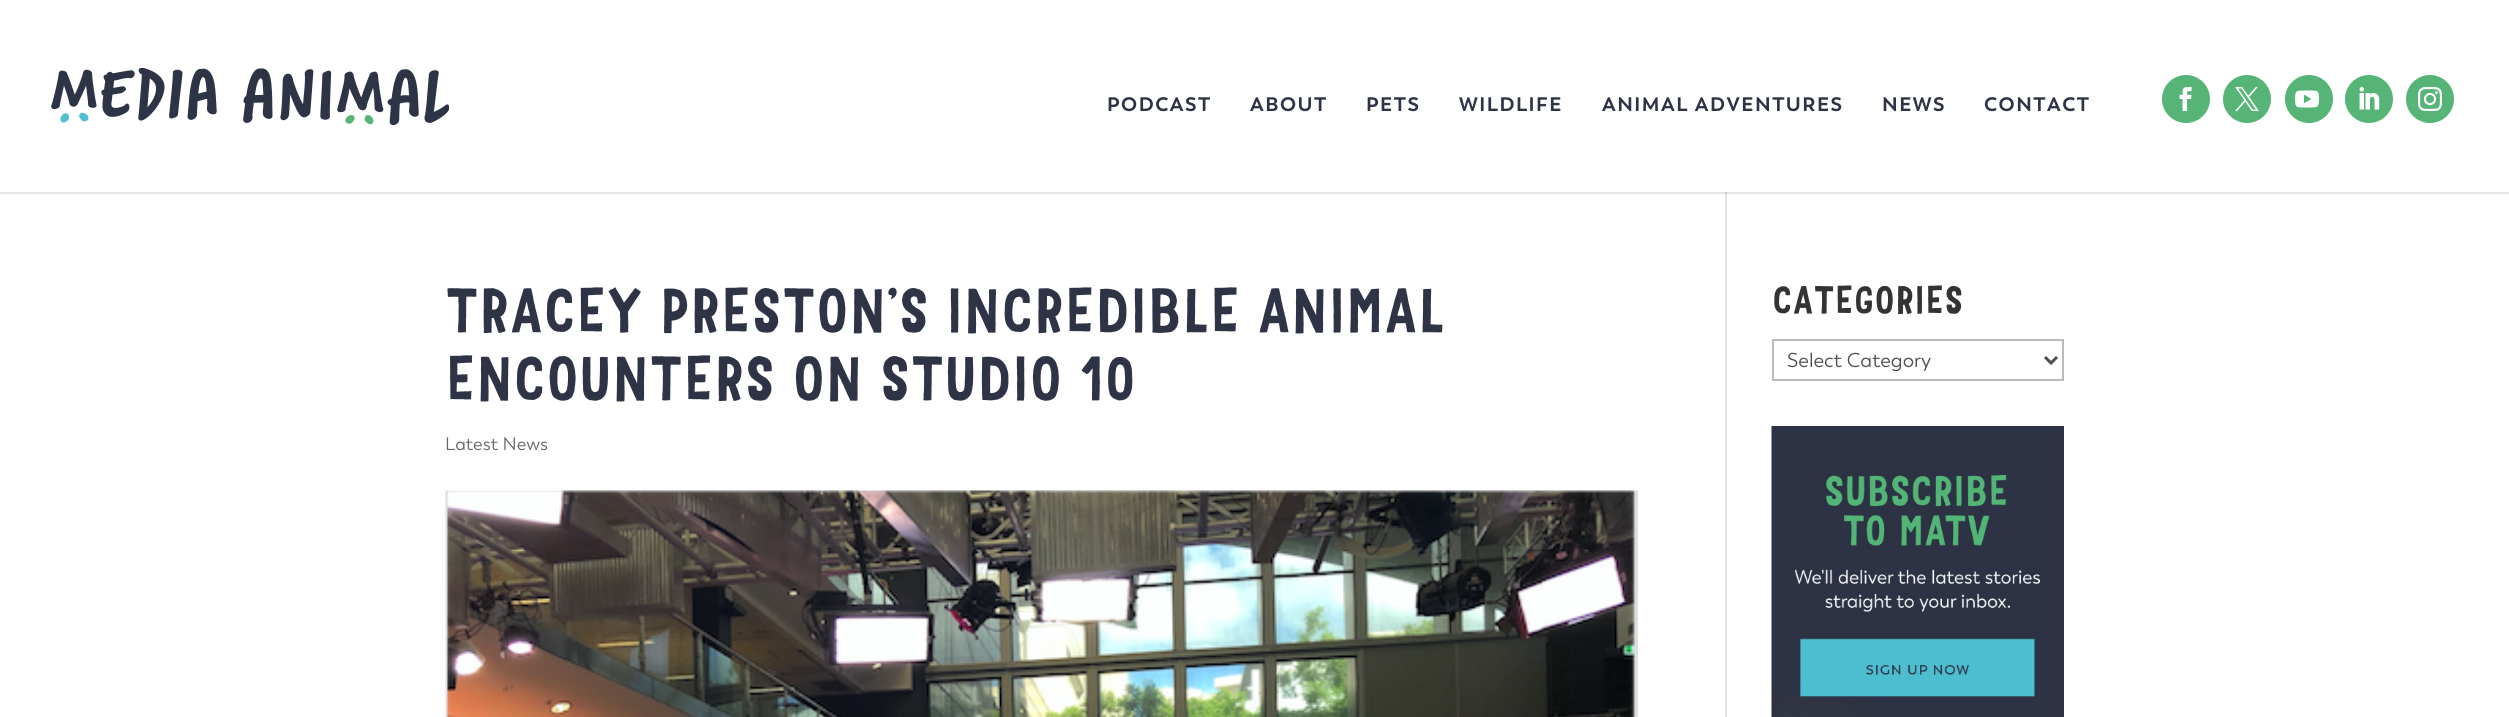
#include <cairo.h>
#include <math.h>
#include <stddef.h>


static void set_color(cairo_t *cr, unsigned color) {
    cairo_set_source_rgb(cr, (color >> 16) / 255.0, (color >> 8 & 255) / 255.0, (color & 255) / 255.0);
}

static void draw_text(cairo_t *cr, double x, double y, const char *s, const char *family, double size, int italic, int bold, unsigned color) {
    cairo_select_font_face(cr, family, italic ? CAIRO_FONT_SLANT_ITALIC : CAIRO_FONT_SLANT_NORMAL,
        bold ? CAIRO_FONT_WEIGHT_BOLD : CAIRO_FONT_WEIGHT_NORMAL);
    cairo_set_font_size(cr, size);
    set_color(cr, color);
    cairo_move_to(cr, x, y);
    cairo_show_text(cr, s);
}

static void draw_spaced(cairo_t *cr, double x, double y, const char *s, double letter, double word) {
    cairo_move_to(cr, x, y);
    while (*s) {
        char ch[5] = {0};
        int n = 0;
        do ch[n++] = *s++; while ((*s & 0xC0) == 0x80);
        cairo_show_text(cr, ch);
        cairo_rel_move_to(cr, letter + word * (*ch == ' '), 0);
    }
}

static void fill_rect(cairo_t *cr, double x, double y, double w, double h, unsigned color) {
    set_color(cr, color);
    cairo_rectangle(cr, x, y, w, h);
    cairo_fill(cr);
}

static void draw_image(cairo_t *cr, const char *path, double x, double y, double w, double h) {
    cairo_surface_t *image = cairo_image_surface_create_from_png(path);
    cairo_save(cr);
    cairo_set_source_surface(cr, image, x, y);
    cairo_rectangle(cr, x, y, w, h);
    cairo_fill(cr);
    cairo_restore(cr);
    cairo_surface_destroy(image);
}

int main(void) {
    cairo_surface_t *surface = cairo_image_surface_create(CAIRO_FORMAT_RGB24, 2509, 717);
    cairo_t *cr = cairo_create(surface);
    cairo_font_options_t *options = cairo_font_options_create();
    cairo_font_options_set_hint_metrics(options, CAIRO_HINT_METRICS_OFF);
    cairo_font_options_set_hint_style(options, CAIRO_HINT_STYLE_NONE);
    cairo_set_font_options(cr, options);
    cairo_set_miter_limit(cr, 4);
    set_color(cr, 0xFFFFFF);
    cairo_paint(cr);
    fill_rect(cr, 1725, 192, 2, 525, 0xE2E2E2);
    cairo_set_source_rgba(cr, 0, 0, 0, 0.1);
    cairo_new_path(cr);
    cairo_move_to(cr, 0, 192);
    cairo_line_to(cr, 0, 194);
    cairo_line_to(cr, 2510, 194);
    cairo_line_to(cr, 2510, 2);
    cairo_line_to(cr, 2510, 192);
    cairo_close_path(cr);
    cairo_fill(cr);
    draw_image(cr, "assets/img1.png", 51, 68, 398, 57);
    cairo_select_font_face(cr, "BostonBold", CAIRO_FONT_SLANT_NORMAL, CAIRO_FONT_WEIGHT_BOLD);
    cairo_set_font_size(cr, 19.5);
    set_color(cr, 0x2E3346);
    draw_spaced(cr, 1107, 111, "PODCAST", 1.5, 0);
    draw_spaced(cr, 1250, 111, "ABOUT", 1.5, 0);
    draw_spaced(cr, 1366, 111, "PETS", 1.5, 0);
    draw_spaced(cr, 1459, 111, "WILDLIFE", 1.5, 0);
    draw_spaced(cr, 1602, 111, "ANIMAL ADVENTURES", 1.5, 0);
    draw_spaced(cr, 1882, 111, "NEWS", 1.5, 0);
    draw_spaced(cr, 1984, 111, "CONTACT", 1.5, 0);
    set_color(cr, 0x55B476);
    cairo_new_path(cr);
    cairo_arc(cr, 2186, 99, 24, 0, 2 * M_PI);
    cairo_fill(cr);
    draw_image(cr, "assets/img2.png", 2179, 87, 13, 24);
    cairo_arc(cr, 2247, 99, 24, 0, 2 * M_PI);
    cairo_fill(cr);
    draw_image(cr, "assets/img3.png", 2235, 87, 24, 24);
    cairo_arc(cr, 2309, 99, 24, 0, 2 * M_PI);
    cairo_fill(cr);
    draw_image(cr, "assets/img4.png", 2295, 90, 24, 18);
    cairo_arc(cr, 2369, 99, 24, 0, 2 * M_PI);
    cairo_fill(cr);
    draw_image(cr, "assets/img5.png", 2359, 87, 21, 23);
    cairo_arc(cr, 2430, 99, 24, 0, 2 * M_PI);
    cairo_fill(cr);
    draw_image(cr, "assets/img6.png", 2418, 87, 24, 24);
    draw_text(cr, 445, 333, "TRACEY PRESTON’S INCREDIBLE ANIMAL", "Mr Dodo", 60, 0, 0, 0x2E3346);
    draw_text(cr, 445, 401, "ENCOUNTERS ON STUDIO 10", "Mr Dodo", 60, 0, 0, 0x2E3346);
    draw_text(cr, 445, 450, "Latest News", "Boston", 18, 0, 0, 0x666666);
    draw_image(cr, "assets/img7.png", 445, 490, 1193, 227);
    draw_text(cr, 1772, 314, "CATEGORIES", "Mr Dodo", 37.5, 0, 0, 0x333333);
    cairo_rectangle(cr, 1773, 340, 290, 40);
    set_color(cr, 0xBBBBBB);
    cairo_stroke(cr);
    cairo_new_path(cr);
    cairo_move_to(cr, 2045, 357);
    cairo_line_to(cr, 2051, 363);
    cairo_line_to(cr, 2057, 357);
    set_color(cr, 0x4E4E4E);
    cairo_set_line_width(cr, 3);
    cairo_stroke(cr);
    draw_text(cr, 1787, 367, "Select Category", "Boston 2", 20, 0, 0, 0x4E4E4E);
    draw_image(cr, "assets/img8.png", 1771, 426, 293, 291);
    cairo_surface_write_to_png(surface, "output.png");
    cairo_font_options_destroy(options);
    cairo_destroy(cr);
    cairo_surface_destroy(surface);
    return 0;
}
